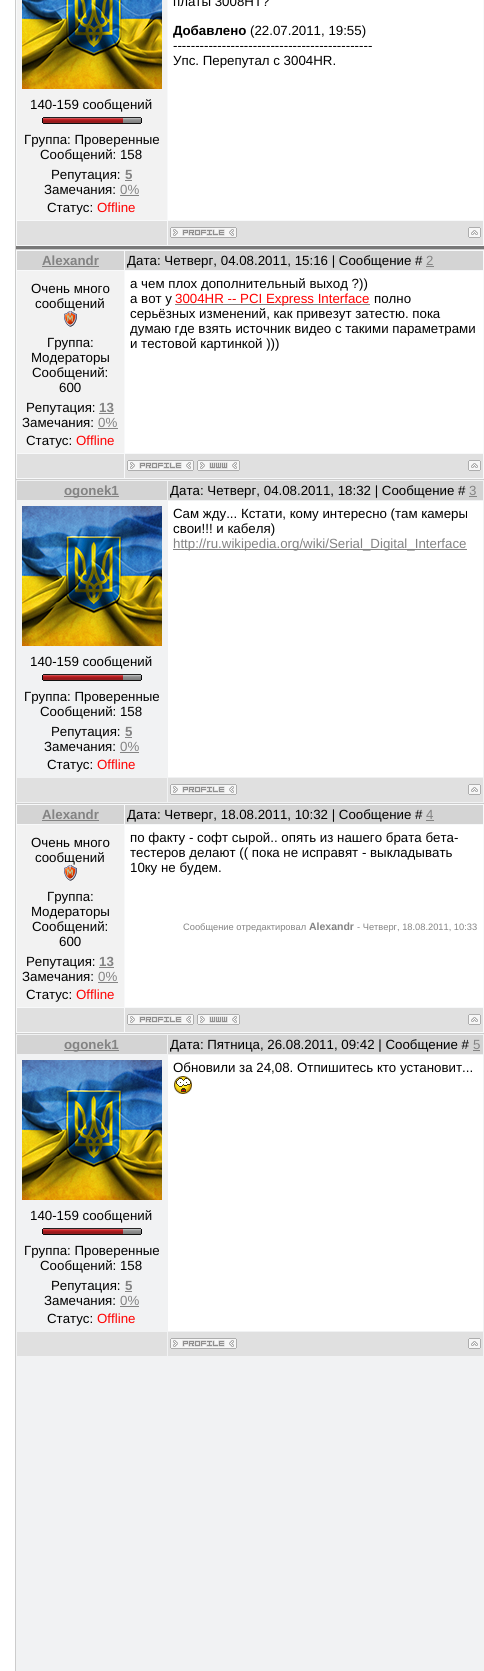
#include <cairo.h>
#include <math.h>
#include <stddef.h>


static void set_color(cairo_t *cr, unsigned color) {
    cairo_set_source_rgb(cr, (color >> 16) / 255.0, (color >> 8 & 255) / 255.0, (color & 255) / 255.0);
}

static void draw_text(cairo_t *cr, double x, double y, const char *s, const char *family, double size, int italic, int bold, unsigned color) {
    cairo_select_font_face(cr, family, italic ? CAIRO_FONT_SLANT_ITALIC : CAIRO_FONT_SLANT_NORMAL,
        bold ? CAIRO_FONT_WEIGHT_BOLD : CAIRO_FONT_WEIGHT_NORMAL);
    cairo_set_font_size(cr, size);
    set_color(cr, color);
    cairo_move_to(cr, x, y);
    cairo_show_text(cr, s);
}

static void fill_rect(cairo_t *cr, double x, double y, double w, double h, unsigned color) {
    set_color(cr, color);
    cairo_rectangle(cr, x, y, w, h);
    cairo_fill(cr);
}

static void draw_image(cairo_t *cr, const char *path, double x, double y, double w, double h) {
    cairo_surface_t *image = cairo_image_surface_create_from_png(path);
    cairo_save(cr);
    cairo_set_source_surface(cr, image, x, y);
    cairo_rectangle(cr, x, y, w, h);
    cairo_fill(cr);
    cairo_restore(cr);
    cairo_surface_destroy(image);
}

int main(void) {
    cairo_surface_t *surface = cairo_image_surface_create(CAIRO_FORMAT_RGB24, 484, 1671);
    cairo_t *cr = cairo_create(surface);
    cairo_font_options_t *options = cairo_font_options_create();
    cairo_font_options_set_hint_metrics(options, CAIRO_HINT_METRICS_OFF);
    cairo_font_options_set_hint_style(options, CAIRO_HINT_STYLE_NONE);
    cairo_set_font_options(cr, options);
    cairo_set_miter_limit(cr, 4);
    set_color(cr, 0xFFFFFF);
    cairo_paint(cr);
    fill_rect(cr, 15, 0, 469, 1671, 0xCCCCCC);
    fill_rect(cr, 16, 0, 468, 246, 0xF8F9FA);
    fill_rect(cr, 16, 246, 468, 3, 0x787878);
    fill_rect(cr, 168, 0, 315, 220, 0xFFFFFF);
    draw_text(cr, 173, 6, "платы 3008HT?", "Liberation Sans", 13.3, 0, 0, 0x000000);
    draw_text(cr, 173, 35, "Добавлено", "Liberation Sans", 13.3, 0, 1, 0x000000);
    draw_text(cr, 250, 35, "(22.07.2011, 19:55)", "Liberation Sans", 13.3, 0, 0, 0x000000);
    draw_text(cr, 173, 50, "---------------------------------------------", "Liberation Sans", 13.3, 0, 0, 0x000000);
    draw_text(cr, 173, 65, "Упс. Перепутал с 3004HR.", "Liberation Sans", 13.3, 0, 0, 0x000000);
    fill_rect(cr, 17, 0, 150, 220, 0xF2F2F2);
    draw_image(cr, "assets/img1.png", 22, 0, 140, 89);
    draw_text(cr, 30, 109, "140-159 сообщений", "Liberation Sans", 13.3, 0, 0, 0x000000);
    draw_image(cr, "assets/img2.png", 42, 117, 100, 7);
    draw_text(cr, 24, 144, "Группа: Проверенные", "Liberation Sans", 13.3, 0, 0, 0x000000);
    draw_text(cr, 40, 159, "Сообщений: 158", "Liberation Sans", 13.3, 0, 0, 0x000000);
    draw_text(cr, 51, 179, "Репутация:", "Liberation Sans", 13.3, 0, 0, 0x000000);
    draw_text(cr, 125, 179, "5", "Liberation Sans", 13.3, 0, 1, 0x838383);
    fill_rect(cr, 125, 180, 7, 1, 0x838383);
    draw_text(cr, 44, 194, "Замечания:", "Liberation Sans", 13.3, 0, 0, 0x000000);
    draw_text(cr, 120, 194, "0%", "Liberation Sans", 13.3, 0, 0, 0x838383);
    fill_rect(cr, 120, 195, 19, 1, 0x838383);
    draw_text(cr, 47, 212, "Статус:", "Liberation Sans", 13.3, 0, 0, 0x000000);
    draw_text(cr, 97, 212, "Offline", "Liberation Sans", 13.3, 0, 0, 0xFF0000);
    fill_rect(cr, 17, 221, 150, 24, 0xE0E0E0);
    fill_rect(cr, 168, 221, 315, 24, 0xE0E0E0);
    draw_image(cr, "assets/img3.png", 170, 227, 67, 11);
    draw_image(cr, "assets/img4.png", 468, 227, 13, 11);
    fill_rect(cr, 16, 250, 468, 229, 0xF8F9FA);
    fill_rect(cr, 17, 251, 107, 19, 0xD4D4D4);
    draw_text(cr, 42, 265, "Alexandr", "Liberation Sans", 13.3, 0, 1, 0x838383);
    fill_rect(cr, 42, 266, 57, 1, 0x838383);
    fill_rect(cr, 125, 251, 358, 19, 0xD4D4D4);
    draw_text(cr, 127, 265, "Дата: Четверг, 04.08.2011, 15:16 | Сообщение #", "Liberation Sans", 13.3, 0, 0, 0x000000);
    draw_text(cr, 426, 265, "2", "Liberation Sans", 13.3, 0, 0, 0x838383);
    fill_rect(cr, 426, 266, 8, 1, 0x838383);
    fill_rect(cr, 17, 271, 107, 182, 0xF2F2F2);
    draw_text(cr, 31, 293, "Очень много", "Liberation Sans", 13.3, 0, 0, 0x000000);
    draw_text(cr, 35, 308, "сообщений", "Liberation Sans", 13.3, 0, 0, 0x000000);
    draw_image(cr, "assets/img5.png", 64, 311, 13, 16);
    draw_text(cr, 47, 347, "Группа:", "Liberation Sans", 13.3, 0, 0, 0x000000);
    draw_text(cr, 31, 362, "Модераторы", "Liberation Sans", 13.3, 0, 0, 0x000000);
    draw_text(cr, 32, 377, "Сообщений:", "Liberation Sans", 13.3, 0, 0, 0x000000);
    draw_text(cr, 59, 392, "600", "Liberation Sans", 13.3, 0, 0, 0x000000);
    draw_text(cr, 26, 412, "Репутация:", "Liberation Sans", 13.3, 0, 0, 0x000000);
    draw_text(cr, 99, 412, "13", "Liberation Sans", 13.3, 0, 1, 0x838383);
    fill_rect(cr, 99, 413, 15, 1, 0x838383);
    draw_text(cr, 22, 427, "Замечания:", "Liberation Sans", 13.3, 0, 0, 0x000000);
    draw_text(cr, 98, 427, "0%", "Liberation Sans", 13.3, 0, 0, 0x838383);
    fill_rect(cr, 98, 428, 20, 1, 0x838383);
    draw_text(cr, 26, 445, "Статус:", "Liberation Sans", 13.3, 0, 0, 0x000000);
    draw_text(cr, 76, 445, "Offline", "Liberation Sans", 13.3, 0, 0, 0xFF0000);
    fill_rect(cr, 125, 271, 358, 182, 0xFFFFFF);
    draw_text(cr, 130, 288, "а чем плох дополнительный выход ?))", "Liberation Sans", 13.3, 0, 0, 0x000000);
    draw_text(cr, 130, 303, "а вот у", "Liberation Sans", 13.3, 0, 0, 0x000000);
    fill_rect(cr, 175, 304, 195, 1, 0x838383);
    draw_text(cr, 175, 303, "3004HR -- PCI Express Interface", "Liberation Sans", 13.3, 0, 0, 0xFF0000);
    draw_text(cr, 374, 303, "полно", "Liberation Sans", 13.3, 0, 0, 0x000000);
    draw_text(cr, 130, 318, "серьёзных изменений, как привезут затестю. пока", "Liberation Sans", 13.3, 0, 0, 0x000000);
    draw_text(cr, 130, 333, "думаю где взять источник видео с такими параметрами", "Liberation Sans", 13.3, 0, 0, 0x000000);
    draw_text(cr, 130, 348, "и тестовой картинкой )))", "Liberation Sans", 13.3, 0, 0, 0x000000);
    fill_rect(cr, 17, 454, 107, 24, 0xE0E0E0);
    fill_rect(cr, 125, 454, 358, 24, 0xE0E0E0);
    draw_image(cr, "assets/img3.png", 127, 460, 67, 11);
    draw_image(cr, "assets/img6.png", 197, 460, 43, 11);
    draw_image(cr, "assets/img4.png", 468, 460, 13, 11);
    fill_rect(cr, 16, 480, 468, 323, 0xF1F2F3);
    fill_rect(cr, 17, 481, 150, 19, 0xD4D4D4);
    fill_rect(cr, 64, 496, 55, 1, 0x838383);
    draw_text(cr, 64, 495, "ogonek1", "Liberation Sans", 13.3, 0, 1, 0x838383);
    fill_rect(cr, 168, 481, 315, 19, 0xD4D4D4);
    draw_text(cr, 170, 495, "Дата: Четверг, 04.08.2011, 18:32 | Сообщение #", "Liberation Sans", 13.3, 0, 0, 0x000000);
    draw_text(cr, 469, 495, "3", "Liberation Sans", 13.3, 0, 0, 0x838383);
    fill_rect(cr, 469, 496, 8, 1, 0x838383);
    fill_rect(cr, 168, 501, 315, 276, 0xFFFFFF);
    draw_text(cr, 173, 518, "Сам жду... Кстати, кому интересно (там камеры", "Liberation Sans", 13.3, 0, 0, 0x000000);
    draw_text(cr, 173, 533, "свои!!! и кабеля)", "Liberation Sans", 13.3, 0, 0, 0x000000);
    fill_rect(cr, 173, 549, 294, 1, 0x838383);
    draw_text(cr, 173, 548, "http://ru.wikipedia.org/wiki/Serial_Digital_Interface", "Liberation Sans", 13.3, 0, 0, 0x838383);
    draw_image(cr, "assets/img7.png", 22, 506, 140, 140);
    draw_text(cr, 30, 666, "140-159 сообщений", "Liberation Sans", 13.3, 0, 0, 0x000000);
    draw_image(cr, "assets/img8.png", 42, 674, 100, 7);
    draw_text(cr, 24, 701, "Группа: Проверенные", "Liberation Sans", 13.3, 0, 0, 0x000000);
    draw_text(cr, 40, 716, "Сообщений: 158", "Liberation Sans", 13.3, 0, 0, 0x000000);
    draw_text(cr, 51, 736, "Репутация:", "Liberation Sans", 13.3, 0, 0, 0x000000);
    draw_text(cr, 125, 736, "5", "Liberation Sans", 13.3, 0, 1, 0x838383);
    fill_rect(cr, 125, 737, 7, 1, 0x838383);
    draw_text(cr, 44, 751, "Замечания:", "Liberation Sans", 13.3, 0, 0, 0x000000);
    draw_text(cr, 120, 751, "0%", "Liberation Sans", 13.3, 0, 0, 0x838383);
    fill_rect(cr, 120, 752, 19, 1, 0x838383);
    draw_text(cr, 47, 769, "Статус:", "Liberation Sans", 13.3, 0, 0, 0x000000);
    draw_text(cr, 97, 769, "Offline", "Liberation Sans", 13.3, 0, 0, 0xFF0000);
    fill_rect(cr, 17, 778, 150, 24, 0xE0E0E0);
    fill_rect(cr, 168, 778, 315, 24, 0xE0E0E0);
    draw_image(cr, "assets/img3.png", 170, 784, 67, 11);
    draw_image(cr, "assets/img4.png", 468, 784, 13, 11);
    fill_rect(cr, 16, 804, 468, 229, 0xF8F9FA);
    fill_rect(cr, 17, 805, 107, 19, 0xD4D4D4);
    draw_text(cr, 42, 819, "Alexandr", "Liberation Sans", 13.3, 0, 1, 0x838383);
    fill_rect(cr, 42, 820, 57, 1, 0x838383);
    fill_rect(cr, 125, 805, 358, 19, 0xD4D4D4);
    draw_text(cr, 127, 819, "Дата: Четверг, 18.08.2011, 10:32 | Сообщение #", "Liberation Sans", 13.3, 0, 0, 0x000000);
    draw_text(cr, 426, 819, "4", "Liberation Sans", 13.3, 0, 0, 0x838383);
    fill_rect(cr, 426, 820, 8, 1, 0x838383);
    fill_rect(cr, 17, 825, 107, 182, 0xF2F2F2);
    draw_text(cr, 31, 847, "Очень много", "Liberation Sans", 13.3, 0, 0, 0x000000);
    draw_text(cr, 35, 862, "сообщений", "Liberation Sans", 13.3, 0, 0, 0x000000);
    draw_image(cr, "assets/img5.png", 64, 865, 13, 16);
    draw_text(cr, 47, 901, "Группа:", "Liberation Sans", 13.3, 0, 0, 0x000000);
    draw_text(cr, 31, 916, "Модераторы", "Liberation Sans", 13.3, 0, 0, 0x000000);
    draw_text(cr, 32, 931, "Сообщений:", "Liberation Sans", 13.3, 0, 0, 0x000000);
    draw_text(cr, 59, 946, "600", "Liberation Sans", 13.3, 0, 0, 0x000000);
    draw_text(cr, 26, 966, "Репутация:", "Liberation Sans", 13.3, 0, 0, 0x000000);
    draw_text(cr, 99, 966, "13", "Liberation Sans", 13.3, 0, 1, 0x838383);
    fill_rect(cr, 99, 967, 15, 1, 0x838383);
    draw_text(cr, 22, 981, "Замечания:", "Liberation Sans", 13.3, 0, 0, 0x000000);
    draw_text(cr, 98, 981, "0%", "Liberation Sans", 13.3, 0, 0, 0x838383);
    fill_rect(cr, 98, 982, 20, 1, 0x838383);
    draw_text(cr, 26, 999, "Статус:", "Liberation Sans", 13.3, 0, 0, 0x000000);
    draw_text(cr, 76, 999, "Offline", "Liberation Sans", 13.3, 0, 0, 0xFF0000);
    fill_rect(cr, 125, 825, 358, 182, 0xFFFFFF);
    draw_text(cr, 130, 842, "по факту - софт сырой.. опять из нашего брата бета-", "Liberation Sans", 13.3, 0, 0, 0x000000);
    draw_text(cr, 130, 857, "тестеров делают (( пока не исправят - выкладывать", "Liberation Sans", 13.3, 0, 0, 0x000000);
    draw_text(cr, 130, 872, "10ку не будем.", "Liberation Sans", 13.3, 0, 0, 0x000000);
    draw_text(cr, 183, 930, "Сообщение отредактировал", "Liberation Sans", 9.3, 0, 0, 0x838383);
    draw_text(cr, 309, 930, "Alexandr", "Liberation Sans", 10.5, 0, 1, 0x838383);
    draw_text(cr, 357, 930, "- Четверг, 18.08.2011, 10:33", "Liberation Sans", 9.3, 0, 0, 0x838383);
    fill_rect(cr, 17, 1008, 107, 24, 0xE0E0E0);
    fill_rect(cr, 125, 1008, 358, 24, 0xE0E0E0);
    draw_image(cr, "assets/img3.png", 127, 1014, 67, 11);
    draw_image(cr, "assets/img6.png", 197, 1014, 43, 11);
    draw_image(cr, "assets/img4.png", 468, 1014, 13, 11);
    fill_rect(cr, 16, 1034, 468, 637, 0xF1F2F3);
    fill_rect(cr, 17, 1035, 150, 19, 0xD4D4D4);
    fill_rect(cr, 64, 1050, 55, 1, 0x838383);
    draw_text(cr, 64, 1049, "ogonek1", "Liberation Sans", 13.3, 0, 1, 0x838383);
    fill_rect(cr, 168, 1035, 315, 19, 0xD4D4D4);
    draw_text(cr, 170, 1049, "Дата: Пятница, 26.08.2011, 09:42 | Сообщение #", "Liberation Sans", 13.3, 0, 0, 0x000000);
    draw_text(cr, 473, 1049, "5", "Liberation Sans", 13.3, 0, 0, 0x838383);
    fill_rect(cr, 473, 1050, 7, 1, 0x838383);
    fill_rect(cr, 168, 1055, 315, 276, 0xFFFFFF);
    draw_text(cr, 173, 1072, "Обновили за 24,08. Отпишитесь кто установит...", "Liberation Sans", 13.3, 0, 0, 0x000000);
    draw_image(cr, "assets/img9.png", 174, 1076, 18, 18);
    draw_image(cr, "assets/img7.png", 22, 1060, 140, 140);
    draw_text(cr, 30, 1220, "140-159 сообщений", "Liberation Sans", 13.3, 0, 0, 0x000000);
    draw_image(cr, "assets/img8.png", 42, 1228, 100, 7);
    draw_text(cr, 24, 1255, "Группа: Проверенные", "Liberation Sans", 13.3, 0, 0, 0x000000);
    draw_text(cr, 40, 1270, "Сообщений: 158", "Liberation Sans", 13.3, 0, 0, 0x000000);
    draw_text(cr, 51, 1290, "Репутация:", "Liberation Sans", 13.3, 0, 0, 0x000000);
    draw_text(cr, 125, 1290, "5", "Liberation Sans", 13.3, 0, 1, 0x838383);
    fill_rect(cr, 125, 1291, 7, 1, 0x838383);
    draw_text(cr, 44, 1305, "Замечания:", "Liberation Sans", 13.3, 0, 0, 0x000000);
    draw_text(cr, 120, 1305, "0%", "Liberation Sans", 13.3, 0, 0, 0x838383);
    fill_rect(cr, 120, 1306, 19, 1, 0x838383);
    draw_text(cr, 47, 1323, "Статус:", "Liberation Sans", 13.3, 0, 0, 0x000000);
    draw_text(cr, 97, 1323, "Offline", "Liberation Sans", 13.3, 0, 0, 0xFF0000);
    fill_rect(cr, 17, 1332, 150, 24, 0xE0E0E0);
    fill_rect(cr, 168, 1332, 315, 24, 0xE0E0E0);
    draw_image(cr, "assets/img3.png", 170, 1338, 67, 11);
    draw_image(cr, "assets/img4.png", 468, 1338, 13, 11);
    cairo_surface_write_to_png(surface, "output.png");
    cairo_font_options_destroy(options);
    cairo_destroy(cr);
    cairo_surface_destroy(surface);
    return 0;
}
